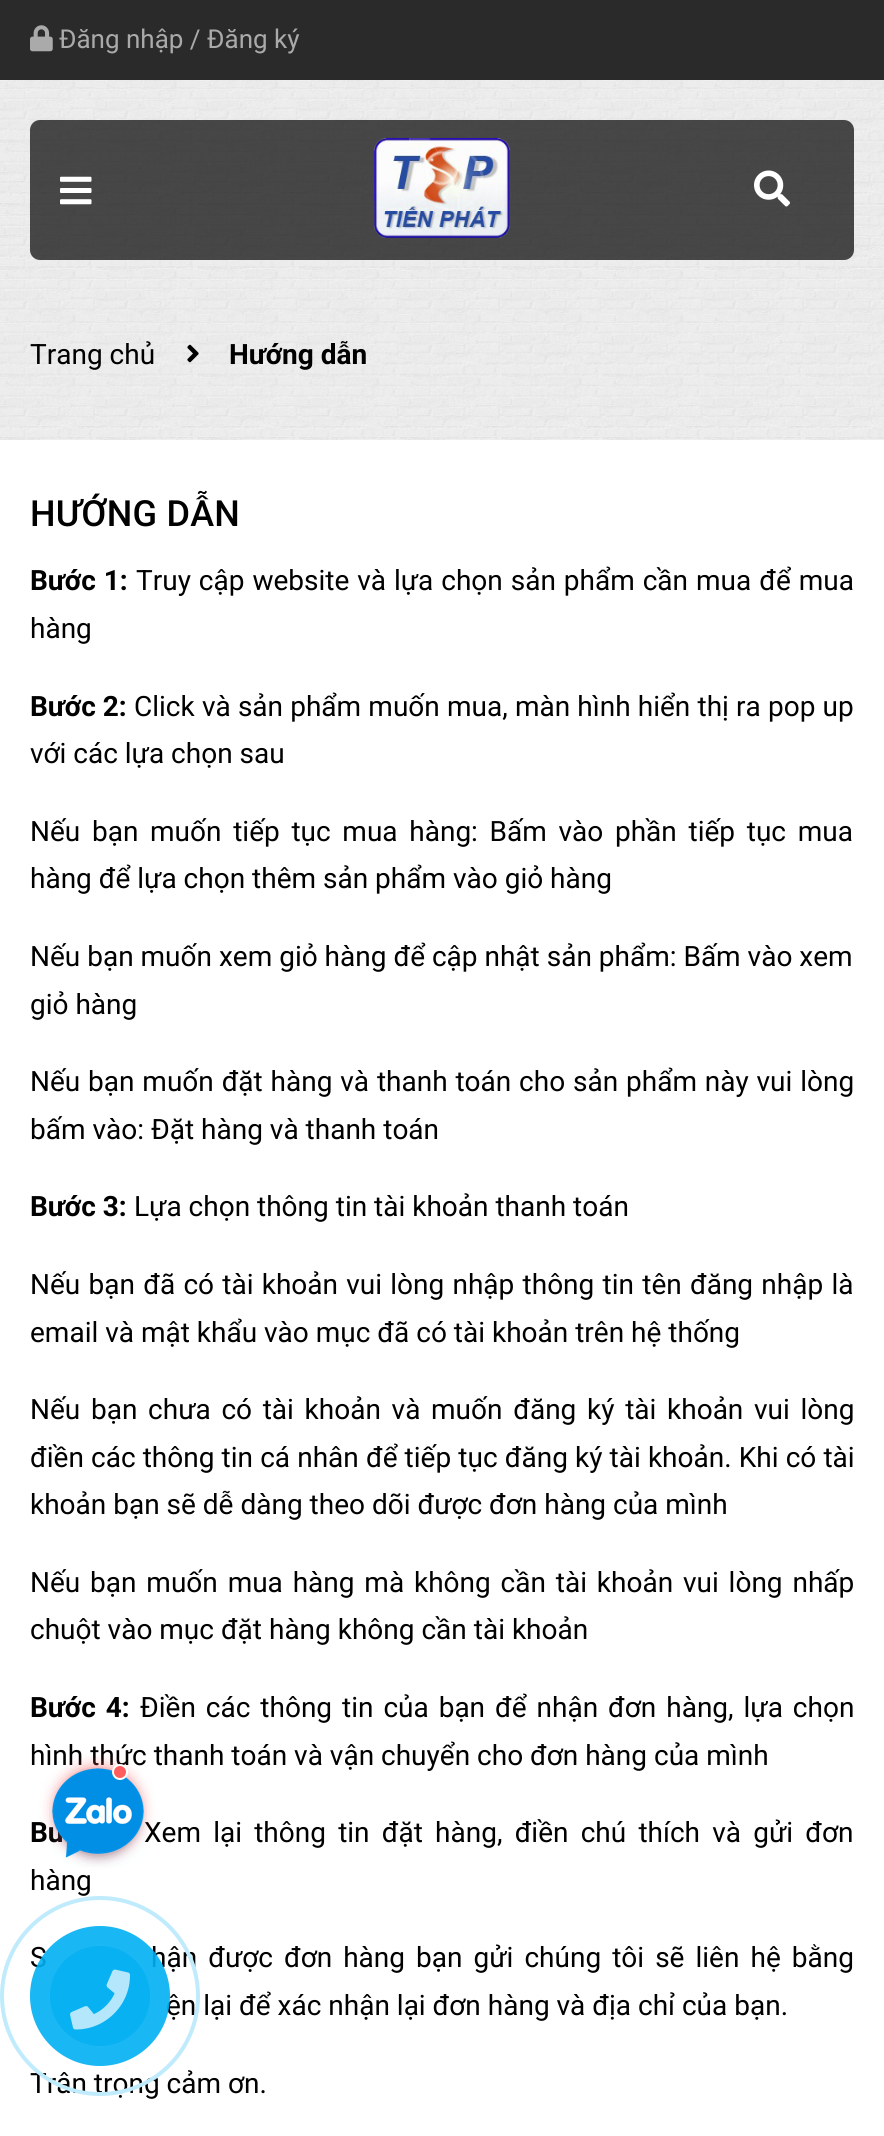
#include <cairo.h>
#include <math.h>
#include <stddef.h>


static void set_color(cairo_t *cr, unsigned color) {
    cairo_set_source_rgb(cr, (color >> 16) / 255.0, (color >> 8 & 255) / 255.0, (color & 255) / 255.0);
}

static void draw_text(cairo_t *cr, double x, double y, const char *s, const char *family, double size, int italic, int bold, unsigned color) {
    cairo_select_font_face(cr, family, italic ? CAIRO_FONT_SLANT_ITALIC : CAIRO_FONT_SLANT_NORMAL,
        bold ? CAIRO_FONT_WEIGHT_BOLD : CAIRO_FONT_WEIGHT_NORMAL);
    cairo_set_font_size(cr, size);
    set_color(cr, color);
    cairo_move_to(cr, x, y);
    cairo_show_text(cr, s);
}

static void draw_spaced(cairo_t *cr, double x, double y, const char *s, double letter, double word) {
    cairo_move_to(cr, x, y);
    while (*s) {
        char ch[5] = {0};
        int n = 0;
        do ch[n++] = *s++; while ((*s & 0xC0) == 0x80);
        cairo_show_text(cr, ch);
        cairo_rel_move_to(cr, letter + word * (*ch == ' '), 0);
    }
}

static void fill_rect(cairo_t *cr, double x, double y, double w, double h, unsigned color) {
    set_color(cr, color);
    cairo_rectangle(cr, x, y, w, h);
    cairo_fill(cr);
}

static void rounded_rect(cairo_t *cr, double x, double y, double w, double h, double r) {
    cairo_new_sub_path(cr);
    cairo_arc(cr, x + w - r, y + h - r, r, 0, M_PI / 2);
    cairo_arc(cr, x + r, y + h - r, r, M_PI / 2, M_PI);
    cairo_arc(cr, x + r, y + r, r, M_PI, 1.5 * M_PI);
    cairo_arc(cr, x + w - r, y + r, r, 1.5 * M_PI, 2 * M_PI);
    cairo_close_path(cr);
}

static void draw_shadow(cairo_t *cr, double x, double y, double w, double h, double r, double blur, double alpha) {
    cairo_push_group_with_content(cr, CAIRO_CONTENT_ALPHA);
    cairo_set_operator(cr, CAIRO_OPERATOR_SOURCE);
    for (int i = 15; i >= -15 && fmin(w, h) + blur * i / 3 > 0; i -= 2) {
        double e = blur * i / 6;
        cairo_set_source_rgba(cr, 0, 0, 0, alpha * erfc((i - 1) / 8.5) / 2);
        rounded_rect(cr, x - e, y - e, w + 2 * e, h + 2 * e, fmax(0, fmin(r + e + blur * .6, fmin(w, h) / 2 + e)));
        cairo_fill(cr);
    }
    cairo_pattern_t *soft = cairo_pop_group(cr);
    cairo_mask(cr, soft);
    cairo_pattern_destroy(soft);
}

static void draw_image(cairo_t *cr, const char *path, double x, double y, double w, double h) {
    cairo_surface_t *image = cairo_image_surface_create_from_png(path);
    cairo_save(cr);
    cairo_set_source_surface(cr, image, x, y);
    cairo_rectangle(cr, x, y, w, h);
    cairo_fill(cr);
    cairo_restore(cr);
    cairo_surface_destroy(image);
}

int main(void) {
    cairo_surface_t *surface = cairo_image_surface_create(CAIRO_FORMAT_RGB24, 884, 2136);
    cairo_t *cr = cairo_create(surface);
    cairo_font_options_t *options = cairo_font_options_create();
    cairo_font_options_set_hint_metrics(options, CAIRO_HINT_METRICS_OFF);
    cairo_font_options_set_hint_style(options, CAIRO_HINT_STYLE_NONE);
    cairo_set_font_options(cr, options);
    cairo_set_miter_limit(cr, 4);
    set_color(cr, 0xFFFFFF);
    cairo_paint(cr);
    fill_rect(cr, 0, 0, 884, 80, 0x2A2A2A);
    draw_image(cr, "assets/img1.png", 30, 25, 23, 27);
    draw_text(cr, 59, 48, "Đăng nhập / Đăng ký", "Roboto", 26, 0, 0, 0xAAAAAA);
    draw_image(cr, "assets/img5.png", 0, 80, 884, 360);
    cairo_set_source_rgba(cr, 0, 0, 0, 0.7);
    rounded_rect(cr, 30, 120, 824, 140, 10);
    cairo_fill(cr);
    draw_image(cr, "assets/img2.png", 60, 176, 32, 29);
    draw_image(cr, "assets/img3.png", 374, 138, 136, 100);
    draw_image(cr, "assets/img4.png", 754, 170, 36, 37);
    draw_text(cr, 30, 364, "Trang chủ", "Roboto", 28, 0, 0, 0x000000);
    draw_image(cr, "assets/img6.png", 187, 344, 12, 19);
    draw_text(cr, 229, 364, "Hướng dẫn", "Roboto", 28, 0, 1, 0x000000);
    cairo_select_font_face(cr, "Roboto Medium", CAIRO_FONT_SLANT_NORMAL, CAIRO_FONT_WEIGHT_NORMAL);
    cairo_set_font_size(cr, 36);
    draw_spaced(cr, 30, 526, "HƯỚNG DẪN", 0.25, 0);
    cairo_select_font_face(cr, "Roboto", CAIRO_FONT_SLANT_NORMAL, CAIRO_FONT_WEIGHT_BOLD);
    cairo_set_font_size(cr, 28);
    draw_spaced(cr, 30, 590, "Bước 1:", 0, 1);
    cairo_select_font_face(cr, "Roboto", CAIRO_FONT_SLANT_NORMAL, CAIRO_FONT_WEIGHT_NORMAL);
    draw_spaced(cr, 136, 590, "Truy cập website và lựa chọn sản phẩm cần mua để mua", 0, 1);
    draw_text(cr, 30, 638, "hàng", "Roboto", 28, 0, 0, 0x000000);
    draw_text(cr, 30, 716, "Bước 2:", "Roboto", 28, 0, 1, 0x000000);
    cairo_select_font_face(cr, "Roboto", CAIRO_FONT_SLANT_NORMAL, CAIRO_FONT_WEIGHT_NORMAL);
    draw_spaced(cr, 134, 716, "Click và sản phẩm muốn mua, màn hình hiển thị ra pop up", 0, 0.25);
    draw_text(cr, 30, 763, "với các lựa chọn sau", "Roboto", 28, 0, 0, 0x000000);
    draw_spaced(cr, 30, 841, "Nếu bạn muốn tiếp tục mua hàng: Bấm vào phần tiếp tục mua", 0, 4.75);
    draw_text(cr, 30, 888, "hàng để lựa chọn thêm sản phẩm vào giỏ hàng", "Roboto", 28, 0, 0, 0x000000);
    draw_text(cr, 30, 966, "Nếu bạn muốn xem giỏ hàng để cập nhật sản phẩm: Bấm vào xem", "Roboto", 28, 0, 0, 0x000000);
    draw_text(cr, 30, 1014, "giỏ hàng", "Roboto", 28, 0, 0, 0x000000);
    draw_spaced(cr, 30, 1091, "Nếu bạn muốn đặt hàng và thanh toán cho sản phẩm này vui lòng", 0, 0.9);
    draw_text(cr, 30, 1139, "bấm vào: Đặt hàng và thanh toán", "Roboto", 28, 0, 0, 0x000000);
    draw_text(cr, 30, 1216, "Bước 3:", "Roboto", 28, 0, 1, 0x000000);
    draw_text(cr, 134, 1216, "Lựa chọn thông tin tài khoản thanh toán", "Roboto", 28, 0, 0, 0x000000);
    draw_spaced(cr, 30, 1294, "Nếu bạn đã có tài khoản vui lòng nhập thông tin tên đăng nhập là", 0, 1.3);
    draw_text(cr, 30, 1342, "email và mật khẩu vào mục đã có tài khoản trên hệ thống", "Roboto", 28, 0, 0, 0x000000);
    draw_spaced(cr, 30, 1419, "Nếu bạn chưa có tài khoản và muốn đăng ký tài khoản vui lòng", 0, 3.75);
    draw_spaced(cr, 30, 1467, "điền các thông tin cá nhân để tiếp tục đăng ký tài khoản. Khi có tài", 0, 0.2);
    draw_text(cr, 30, 1514, "khoản bạn sẽ dễ dàng theo dõi được đơn hàng của mình", "Roboto", 28, 0, 0, 0x000000);
    draw_spaced(cr, 30, 1592, "Nếu bạn muốn mua hàng mà không cần tài khoản vui lòng nhấp", 0, 2.9);
    draw_text(cr, 30, 1639, "chuột vào mục đặt hàng không cần tài khoản", "Roboto", 28, 0, 0, 0x000000);
    cairo_select_font_face(cr, "Roboto", CAIRO_FONT_SLANT_NORMAL, CAIRO_FONT_WEIGHT_BOLD);
    draw_spaced(cr, 30, 1717, "Bước 4:", 0, 3);
    cairo_select_font_face(cr, "Roboto", CAIRO_FONT_SLANT_NORMAL, CAIRO_FONT_WEIGHT_NORMAL);
    draw_spaced(cr, 140, 1717, "Điền các thông tin của bạn để nhận đơn hàng, lựa chọn", 0, 3);
    draw_text(cr, 30, 1765, "hình thức thanh toán và vận chuyển cho đơn hàng của mình", "Roboto", 28, 0, 0, 0x000000);
    cairo_select_font_face(cr, "Roboto", CAIRO_FONT_SLANT_NORMAL, CAIRO_FONT_WEIGHT_BOLD);
    draw_spaced(cr, 30, 1842, "Bư", 0, 5.25);
    cairo_select_font_face(cr, "Roboto", CAIRO_FONT_SLANT_NORMAL, CAIRO_FONT_WEIGHT_NORMAL);
    draw_spaced(cr, 144, 1842, "Xem lại thông tin đặt hàng, điền chú thích và gửi đơn", 0, 5.25);
    draw_text(cr, 30, 1890, "hàng", "Roboto", 28, 0, 0, 0x000000);
    draw_spaced(cr, 30, 1967, "S", 0, 4.1);
    draw_spaced(cr, 151, 1967, "hận được đơn hàng bạn gửi chúng tôi sẽ liên hệ bằng", 0, 4.1);
    draw_text(cr, 166, 2015, "ện lại để xác nhận lại đơn hàng và địa chỉ của bạn.", "Roboto", 28, 0, 0, 0x000000);
    draw_text(cr, 30, 2093, "Trân trọng cảm ơn.", "Roboto", 28, 0, 0, 0x000000);
    set_color(cr, 0xFF5D5D);
    draw_shadow(cr, 58, 1770, 80, 80, 40, 8, 1);
    draw_image(cr, "assets/img7.png", 49, 1767, 98, 100);
    set_color(cr, 0xFF5D5D);
    cairo_arc(cr, 120, 1772, 7, 0, 2 * M_PI);
    cairo_fill_preserve(cr);
    set_color(cr, 0xFFFFFF);
    cairo_stroke(cr);
    cairo_arc(cr, 100, 1996, 98, 0, 2 * M_PI);
    set_color(cr, 0xBFEBFC);
    cairo_set_line_width(cr, 4);
    cairo_stroke(cr);
    cairo_set_source_rgba(cr, 0, 0.686, 0.949, 0.9);
    cairo_arc(cr, 100, 1996, 70, 0, 2 * M_PI);
    cairo_fill(cr);
    cairo_set_source_rgba(cr, 0, 0.686, 0.949, 0.7);
    cairo_arc(cr, 100, 1996, 50, 0, 2 * M_PI);
    cairo_fill(cr);
    draw_image(cr, "assets/img8.png", 70, 1969, 60, 61);
    cairo_surface_write_to_png(surface, "output.png");
    cairo_font_options_destroy(options);
    cairo_destroy(cr);
    cairo_surface_destroy(surface);
    return 0;
}
